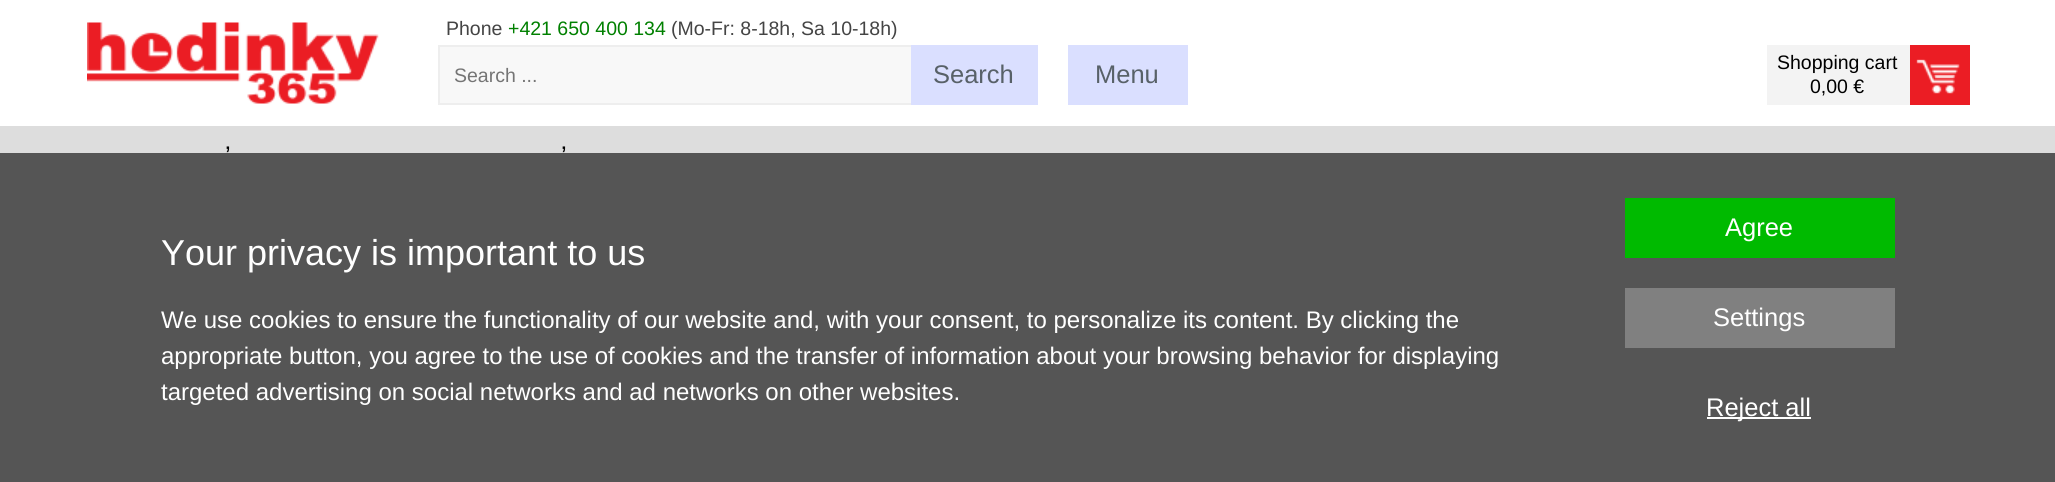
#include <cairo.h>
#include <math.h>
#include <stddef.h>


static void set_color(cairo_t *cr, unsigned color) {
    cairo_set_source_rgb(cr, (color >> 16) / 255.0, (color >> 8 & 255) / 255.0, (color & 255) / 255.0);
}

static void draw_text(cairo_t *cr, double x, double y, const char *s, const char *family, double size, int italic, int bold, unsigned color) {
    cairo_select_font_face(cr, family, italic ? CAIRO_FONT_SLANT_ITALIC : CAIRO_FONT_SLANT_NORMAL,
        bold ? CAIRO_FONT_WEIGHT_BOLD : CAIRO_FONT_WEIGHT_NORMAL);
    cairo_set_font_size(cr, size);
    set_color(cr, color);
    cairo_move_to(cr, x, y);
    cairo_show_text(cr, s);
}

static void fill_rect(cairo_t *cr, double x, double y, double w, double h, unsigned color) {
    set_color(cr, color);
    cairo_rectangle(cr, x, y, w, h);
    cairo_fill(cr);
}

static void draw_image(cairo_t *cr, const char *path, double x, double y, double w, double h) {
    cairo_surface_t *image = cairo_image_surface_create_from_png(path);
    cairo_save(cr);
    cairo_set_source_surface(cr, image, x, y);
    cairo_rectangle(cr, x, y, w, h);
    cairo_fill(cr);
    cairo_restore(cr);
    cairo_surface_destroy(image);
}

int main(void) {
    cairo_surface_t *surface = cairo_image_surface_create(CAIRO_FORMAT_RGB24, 2055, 482);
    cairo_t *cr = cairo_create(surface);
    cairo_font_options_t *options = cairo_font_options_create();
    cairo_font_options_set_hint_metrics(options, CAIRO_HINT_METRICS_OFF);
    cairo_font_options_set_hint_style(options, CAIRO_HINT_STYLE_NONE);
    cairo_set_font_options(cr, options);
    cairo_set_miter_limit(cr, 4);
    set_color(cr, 0xFFFFFF);
    cairo_paint(cr);
    draw_image(cr, "assets/img1.png", 87, 22, 292, 82);
    draw_text(cr, 446, 35, "Phone", "Liberation Sans", 19.5, 0, 0, 0x444444);
    draw_text(cr, 508, 35, "+421 650 400 134", "Liberation Sans", 19.5, 0, 0, 0x008000);
    draw_text(cr, 671, 35, "(Mo-Fr: 8-18h, Sa 10-18h)", "Liberation Sans", 19.5, 0, 0, 0x444444);
    fill_rect(cr, 1767, 45, 143, 60, 0xF3F3F3);
    draw_text(cr, 1777, 69, "Shopping cart", "Liberation Sans", 19.5, 0, 0, 0x000000);
    draw_text(cr, 1810, 93, "0,00 €", "Liberation Sans", 19.5, 0, 0, 0x000000);
    fill_rect(cr, 1910, 45, 60, 60, 0xEB1D24);
    draw_image(cr, "assets/img2.png", 1916, 59, 44, 35);
    fill_rect(cr, 440, 47, 471, 56, 0xF8F8F8);
    cairo_rectangle(cr, 439, 46, 598, 58);
    set_color(cr, 0xEEEEEE);
    cairo_stroke(cr);
    draw_text(cr, 454, 82, "Search ...", "Liberation Sans", 19.5, 0, 0, 0x757575);
    fill_rect(cr, 911, 45, 127, 60, 0xDADFFF);
    draw_text(cr, 933, 83, "Search", "Liberation Sans", 25.5, 0, 0, 0x586168);
    fill_rect(cr, 1068, 45, 120, 60, 0xDADFFF);
    draw_text(cr, 1095, 83, "Menu", "Liberation Sans", 25.5, 0, 0, 0x586168);
    fill_rect(cr, 0, 126, 2055, 27, 0xDDDDDD);
    draw_text(cr, 225, 164, "’", "Liberation Sans", 25.5, 0, 0, 0x000000);
    draw_text(cr, 561, 164, "’", "Liberation Sans", 25.5, 0, 0, 0x000000);
    fill_rect(cr, 0, 153, 2055, 329, 0x555555);
    draw_text(cr, 161, 265, "Your privacy is important to us", "Liberation Sans", 36, 0, 0, 0xFFFFFF);
    draw_text(cr, 161, 328, "We use cookies to ensure the functionality of our website and, with your consent, to personalize its content. By clicking the", "Liberation Sans", 24, 0, 0, 0xFFFFFF);
    draw_text(cr, 161, 364, "appropriate button, you agree to the use of cookies and the transfer of information about your browsing behavior for displaying", "Liberation Sans", 24, 0, 0, 0xFFFFFF);
    draw_text(cr, 161, 400, "targeted advertising on social networks and ad networks on other websites.", "Liberation Sans", 24, 0, 0, 0xFFFFFF);
    fill_rect(cr, 1625, 198, 270, 60, 0x00BA00);
    draw_text(cr, 1725, 236, "Agree", "Liberation Sans", 25.5, 0, 0, 0xFFFFFF);
    fill_rect(cr, 1625, 288, 270, 60, 0x808080);
    draw_text(cr, 1713, 326, "Settings", "Liberation Sans", 25.5, 0, 0, 0xFFFFFF);
    fill_rect(cr, 1707, 417, 104, 2, 0xFFFFFF);
    draw_text(cr, 1706, 416, "Reject all", "Liberation Sans", 25.5, 0, 0, 0xFFFFFF);
    cairo_surface_write_to_png(surface, "output.png");
    cairo_font_options_destroy(options);
    cairo_destroy(cr);
    cairo_surface_destroy(surface);
    return 0;
}
